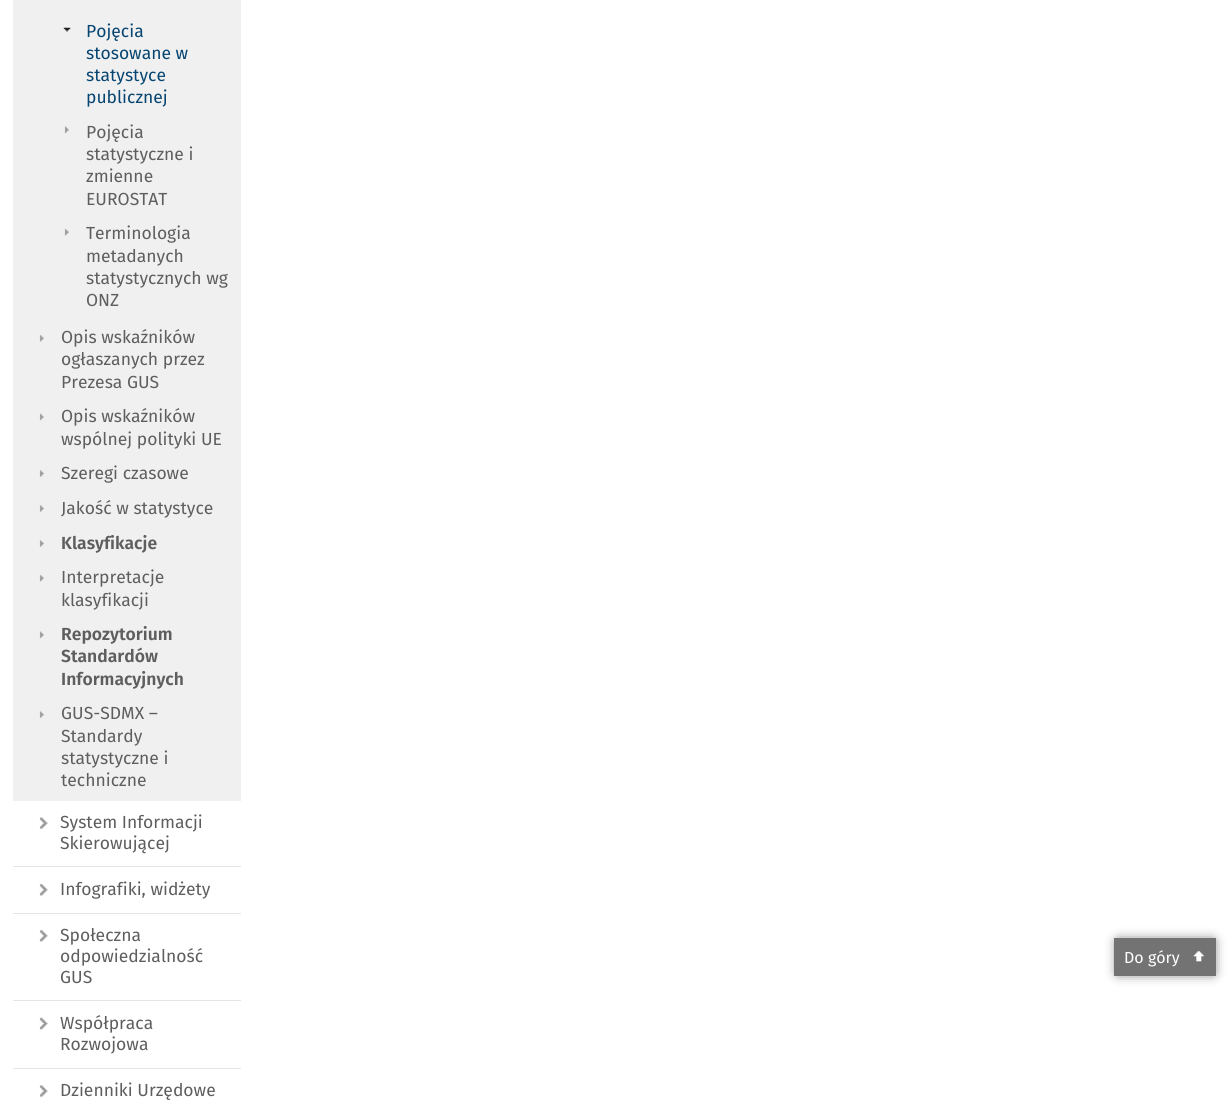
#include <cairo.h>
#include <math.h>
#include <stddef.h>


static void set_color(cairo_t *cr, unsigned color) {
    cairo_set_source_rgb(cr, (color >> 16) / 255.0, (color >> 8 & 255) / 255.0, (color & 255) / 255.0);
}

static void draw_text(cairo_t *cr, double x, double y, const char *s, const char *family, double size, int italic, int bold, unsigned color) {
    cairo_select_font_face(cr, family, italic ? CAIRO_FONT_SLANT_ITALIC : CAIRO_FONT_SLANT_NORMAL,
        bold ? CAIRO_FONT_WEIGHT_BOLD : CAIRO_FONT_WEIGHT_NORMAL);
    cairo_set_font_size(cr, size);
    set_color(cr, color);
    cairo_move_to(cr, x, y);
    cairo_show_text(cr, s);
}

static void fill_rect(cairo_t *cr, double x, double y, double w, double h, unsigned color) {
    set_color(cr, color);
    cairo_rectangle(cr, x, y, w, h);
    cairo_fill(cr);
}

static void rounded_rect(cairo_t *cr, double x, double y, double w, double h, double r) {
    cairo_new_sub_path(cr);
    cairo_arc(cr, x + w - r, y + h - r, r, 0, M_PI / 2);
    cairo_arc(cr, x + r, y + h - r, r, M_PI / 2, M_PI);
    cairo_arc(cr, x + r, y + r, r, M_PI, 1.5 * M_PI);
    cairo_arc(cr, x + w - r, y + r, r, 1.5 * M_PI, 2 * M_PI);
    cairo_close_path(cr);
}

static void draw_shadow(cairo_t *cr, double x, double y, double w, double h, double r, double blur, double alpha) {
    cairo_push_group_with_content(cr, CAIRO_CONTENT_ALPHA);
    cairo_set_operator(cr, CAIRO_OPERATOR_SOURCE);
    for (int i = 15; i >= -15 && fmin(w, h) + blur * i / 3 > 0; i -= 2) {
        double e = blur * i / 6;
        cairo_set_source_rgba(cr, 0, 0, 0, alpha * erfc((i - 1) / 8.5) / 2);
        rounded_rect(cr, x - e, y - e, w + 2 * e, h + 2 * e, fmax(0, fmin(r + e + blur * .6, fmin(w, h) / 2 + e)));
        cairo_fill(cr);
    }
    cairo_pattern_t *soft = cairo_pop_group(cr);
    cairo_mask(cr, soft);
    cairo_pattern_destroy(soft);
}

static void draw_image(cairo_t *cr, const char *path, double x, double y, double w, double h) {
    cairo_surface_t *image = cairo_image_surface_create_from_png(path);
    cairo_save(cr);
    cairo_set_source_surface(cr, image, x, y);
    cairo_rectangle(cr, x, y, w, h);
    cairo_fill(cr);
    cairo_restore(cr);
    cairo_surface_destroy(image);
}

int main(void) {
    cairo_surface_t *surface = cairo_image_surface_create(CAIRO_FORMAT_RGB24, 1228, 1101);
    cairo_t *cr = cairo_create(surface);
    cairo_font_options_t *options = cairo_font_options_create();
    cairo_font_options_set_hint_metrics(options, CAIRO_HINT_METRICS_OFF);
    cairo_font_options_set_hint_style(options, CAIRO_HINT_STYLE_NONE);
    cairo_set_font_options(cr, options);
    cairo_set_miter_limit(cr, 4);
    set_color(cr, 0xFFFFFF);
    cairo_paint(cr);
    fill_rect(cr, 13, 0, 228, 801, 0xF0F0F0);
    draw_image(cr, "assets/img1.png", 63, 27, 8, 5);
    draw_text(cr, 86, 37, "Pojęcia", "Fira Sans", 17.5, 0, 0, 0x064571);
    draw_text(cr, 86, 59, "stosowane w", "Fira Sans", 17.5, 0, 0, 0x064571);
    draw_text(cr, 86, 81, "statystyce", "Fira Sans", 17.5, 0, 0, 0x064571);
    draw_text(cr, 86, 103, "publicznej", "Fira Sans", 17.5, 0, 0, 0x064571);
    draw_image(cr, "assets/img2.png", 64, 126, 5, 8);
    draw_text(cr, 86, 138, "Pojęcia", "Fira Sans", 17.5, 0, 0, 0x5E5E5E);
    draw_text(cr, 86, 160, "statystyczne i", "Fira Sans", 17.5, 0, 0, 0x5E5E5E);
    draw_text(cr, 86, 182, "zmienne", "Fira Sans", 17.5, 0, 0, 0x5E5E5E);
    draw_text(cr, 86, 205, "EUROSTAT", "Fira Sans", 17.5, 0, 0, 0x5E5E5E);
    draw_image(cr, "assets/img3.png", 64, 228, 5, 8);
    draw_text(cr, 86, 239, "Terminologia", "Fira Sans", 17.5, 0, 0, 0x5E5E5E);
    draw_text(cr, 86, 262, "metadanych", "Fira Sans", 17.5, 0, 0, 0x5E5E5E);
    draw_text(cr, 86, 284, "statystycznych wg", "Fira Sans", 17.5, 0, 0, 0x5E5E5E);
    draw_text(cr, 86, 306, "ONZ", "Fira Sans", 17.5, 0, 0, 0x5E5E5E);
    draw_image(cr, "assets/img4.png", 39, 335, 5, 7);
    draw_text(cr, 61, 343, "Opis wskaźników", "Fira Sans", 17.5, 0, 0, 0x5E5E5E);
    draw_text(cr, 61, 365, "ogłaszanych przez", "Fira Sans", 17.5, 0, 0, 0x5E5E5E);
    draw_text(cr, 61, 388, "Prezesa GUS", "Fira Sans", 17.5, 0, 0, 0x5E5E5E);
    draw_image(cr, "assets/img5.png", 39, 413, 5, 8);
    draw_text(cr, 61, 422, "Opis wskaźników", "Fira Sans", 17.5, 0, 0, 0x5E5E5E);
    draw_text(cr, 61, 445, "wspólnej polityki UE", "Fira Sans", 17.5, 0, 0, 0x5E5E5E);
    draw_image(cr, "assets/img6.png", 39, 470, 5, 7);
    draw_text(cr, 61, 479, "Szeregi czasowe", "Fira Sans", 17.5, 0, 0, 0x5E5E5E);
    draw_image(cr, "assets/img6.png", 39, 505, 5, 7);
    draw_text(cr, 61, 514, "Jakość w statystyce", "Fira Sans", 17.5, 0, 0, 0x5E5E5E);
    draw_image(cr, "assets/img6.png", 39, 540, 5, 7);
    draw_text(cr, 61, 549, "Klasyfikacje", "Fira Sans SemiBold", 17.5, 0, 0, 0x5E5E5E);
    draw_image(cr, "assets/img7.png", 39, 575, 5, 7);
    draw_text(cr, 61, 583, "Interpretacje", "Fira Sans", 17.5, 0, 0, 0x5E5E5E);
    draw_text(cr, 61, 606, "klasyfikacji", "Fira Sans", 17.5, 0, 0, 0x5E5E5E);
    draw_image(cr, "assets/img8.png", 39, 631, 5, 8);
    draw_text(cr, 61, 640, "Repozytorium", "Fira Sans SemiBold", 17.5, 0, 0, 0x5E5E5E);
    draw_text(cr, 61, 662, "Standardów", "Fira Sans SemiBold", 17.5, 0, 0, 0x5E5E5E);
    draw_text(cr, 61, 685, "Informacyjnych", "Fira Sans SemiBold", 17.5, 0, 0, 0x5E5E5E);
    draw_image(cr, "assets/img9.png", 39, 711, 5, 7);
    draw_text(cr, 61, 719, "GUS-SDMX –", "Fira Sans", 17.5, 0, 0, 0x5E5E5E);
    draw_text(cr, 61, 742, "Standardy", "Fira Sans", 17.5, 0, 0, 0x5E5E5E);
    draw_text(cr, 61, 764, "statystyczne i", "Fira Sans", 17.5, 0, 0, 0x5E5E5E);
    draw_text(cr, 61, 786, "techniczne", "Fira Sans", 17.5, 0, 0, 0x5E5E5E);
    draw_image(cr, "assets/img10.png", 39, 817, 9, 12);
    fill_rect(cr, 13, 866, 228, 1, 0xE5E5E5);
    draw_text(cr, 60, 828, "System Informacji", "Fira Sans", 17.5, 0, 0, 0x5E5E5E);
    draw_text(cr, 60, 849, "Skierowującej", "Fira Sans", 17.5, 0, 0, 0x5E5E5E);
    draw_image(cr, "assets/img11.png", 39, 884, 9, 12);
    fill_rect(cr, 13, 913, 228, 1, 0xE5E5E5);
    draw_text(cr, 60, 895, "Infografiki, widżety", "Fira Sans", 17.5, 0, 0, 0x5E5E5E);
    draw_image(cr, "assets/img12.png", 39, 930, 9, 12);
    fill_rect(cr, 13, 1000, 228, 1, 0xE5E5E5);
    draw_text(cr, 60, 941, "Społeczna", "Fira Sans", 17.5, 0, 0, 0x5E5E5E);
    draw_text(cr, 60, 962, "odpowiedzialność", "Fira Sans", 17.5, 0, 0, 0x5E5E5E);
    draw_text(cr, 60, 983, "GUS", "Fira Sans", 17.5, 0, 0, 0x5E5E5E);
    draw_image(cr, "assets/img13.png", 39, 1017, 9, 13);
    fill_rect(cr, 13, 1068, 228, 1, 0xE5E5E5);
    draw_text(cr, 60, 1029, "Współpraca", "Fira Sans", 17.5, 0, 0, 0x5E5E5E);
    draw_text(cr, 60, 1050, "Rozwojowa", "Fira Sans", 17.5, 0, 0, 0x5E5E5E);
    draw_image(cr, "assets/img14.png", 39, 1085, 9, 12);
    draw_text(cr, 60, 1096, "Dzienniki Urzędowe", "Fira Sans", 17.5, 0, 0, 0x5E5E5E);
    set_color(cr, 0x000000);
    draw_shadow(cr, 1118, 941, 95, 32, 0, 6, 0.7);
    fill_rect(cr, 1114, 938, 102, 38, 0x737373);
    draw_text(cr, 1124, 963, "Do góry", "Fira Sans", 16, 0, 0, 0xFFFFFF);
    draw_image(cr, "assets/img15.png", 1193, 951, 11, 11);
    cairo_surface_write_to_png(surface, "output.png");
    cairo_font_options_destroy(options);
    cairo_destroy(cr);
    cairo_surface_destroy(surface);
    return 0;
}
